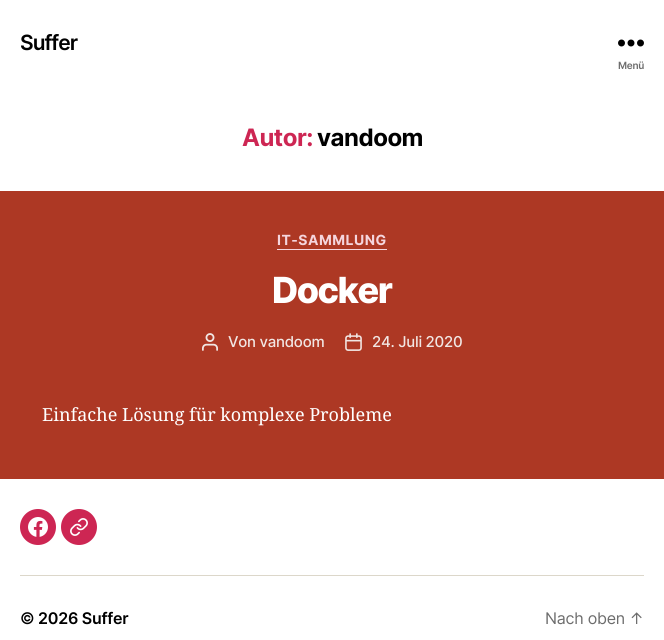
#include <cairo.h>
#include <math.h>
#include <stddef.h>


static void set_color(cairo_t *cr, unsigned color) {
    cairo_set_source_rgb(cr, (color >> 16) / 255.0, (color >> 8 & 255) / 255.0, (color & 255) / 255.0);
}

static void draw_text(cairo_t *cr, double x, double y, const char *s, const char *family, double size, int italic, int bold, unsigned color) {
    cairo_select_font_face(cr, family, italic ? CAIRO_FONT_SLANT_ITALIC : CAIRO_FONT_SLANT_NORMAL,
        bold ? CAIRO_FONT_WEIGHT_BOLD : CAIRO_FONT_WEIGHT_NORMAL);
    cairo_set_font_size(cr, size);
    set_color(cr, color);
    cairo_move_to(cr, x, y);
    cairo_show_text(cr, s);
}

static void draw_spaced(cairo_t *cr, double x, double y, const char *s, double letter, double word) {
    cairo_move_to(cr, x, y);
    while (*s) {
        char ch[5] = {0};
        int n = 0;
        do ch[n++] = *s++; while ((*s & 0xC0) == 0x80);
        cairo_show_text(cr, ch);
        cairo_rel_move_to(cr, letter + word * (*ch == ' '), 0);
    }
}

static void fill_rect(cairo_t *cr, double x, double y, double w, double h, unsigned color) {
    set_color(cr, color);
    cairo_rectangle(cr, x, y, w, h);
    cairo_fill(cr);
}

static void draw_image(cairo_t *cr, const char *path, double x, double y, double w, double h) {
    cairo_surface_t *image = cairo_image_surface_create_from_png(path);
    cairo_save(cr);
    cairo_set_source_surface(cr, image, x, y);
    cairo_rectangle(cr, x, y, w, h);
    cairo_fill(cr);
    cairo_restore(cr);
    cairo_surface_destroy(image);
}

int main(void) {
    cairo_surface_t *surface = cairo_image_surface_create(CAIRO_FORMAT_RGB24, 664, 640);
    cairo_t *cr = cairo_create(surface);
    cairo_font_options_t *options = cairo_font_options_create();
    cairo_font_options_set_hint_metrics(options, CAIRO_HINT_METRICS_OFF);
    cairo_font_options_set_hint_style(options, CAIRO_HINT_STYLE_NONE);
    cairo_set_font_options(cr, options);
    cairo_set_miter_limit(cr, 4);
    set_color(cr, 0xAD3824);
    cairo_paint(cr);
    fill_rect(cr, 0, 0, 664, 191, 0xFFFFFF);
    cairo_select_font_face(cr, "Inter SemiBold", CAIRO_FONT_SLANT_NORMAL, CAIRO_FONT_WEIGHT_NORMAL);
    cairo_set_font_size(cr, 21);
    set_color(cr, 0x000000);
    draw_spaced(cr, 20, 50, "Suffer", -1, 0);
    draw_image(cr, "assets/img1.png", 618, 39, 26, 8);
    cairo_set_font_size(cr, 10);
    set_color(cr, 0x6D6D6D);
    draw_spaced(cr, 618, 69, "Menü", -0.25, 0);
    cairo_select_font_face(cr, "Inter", CAIRO_FONT_SLANT_NORMAL, CAIRO_FONT_WEIGHT_BOLD);
    cairo_set_font_size(cr, 24);
    set_color(cr, 0xCD2653);
    draw_spaced(cr, 242, 146, "Autor:", -0.5, 0);
    set_color(cr, 0x000000);
    draw_spaced(cr, 317, 146, "vandoom", -0.5, 0);
    fill_rect(cr, 277, 249, 110, 1, 0xF5D5DD);
    cairo_set_font_size(cr, 14);
    draw_spaced(cr, 277, 245, "IT-SAMMLUNG", 0.5, 0);
    cairo_select_font_face(cr, "Inter ExtraBold", CAIRO_FONT_SLANT_NORMAL, CAIRO_FONT_WEIGHT_NORMAL);
    cairo_set_font_size(cr, 36);
    set_color(cr, 0xFFFFFF);
    draw_spaced(cr, 272, 303, "Docker", -1.5, 0);
    draw_image(cr, "assets/img2.png", 202, 333, 16, 18);
    cairo_select_font_face(cr, "Inter Medium", CAIRO_FONT_SLANT_NORMAL, CAIRO_FONT_WEIGHT_NORMAL);
    cairo_set_font_size(cr, 15);
    set_color(cr, 0xF1E6E3);
    draw_spaced(cr, 228, 347, "Von vandoom", -0.25, 0);
    draw_image(cr, "assets/img3.png", 345, 333, 17, 18);
    draw_spaced(cr, 372, 347, "24. Juli 2020", -0.25, 0);
    draw_text(cr, 42, 421, "Einfache Lösung für komplexe Probleme", "Noto Serif", 18, 0, 0, 0xFFFFFF);
    fill_rect(cr, 0, 479, 664, 161, 0xFFFFFF);
    fill_rect(cr, 20, 575, 624, 1, 0xDCD7CA);
    set_color(cr, 0xCD2653);
    cairo_new_path(cr);
    cairo_arc(cr, 38, 527, 18, 0, 2 * M_PI);
    cairo_fill(cr);
    draw_image(cr, "assets/img4.png", 28, 517, 20, 20);
    cairo_arc(cr, 79, 527, 18, 0, 2 * M_PI);
    cairo_fill(cr);
    draw_image(cr, "assets/img5.png", 70, 518, 18, 18);
    cairo_select_font_face(cr, "Inter SemiBold", CAIRO_FONT_SLANT_NORMAL, CAIRO_FONT_WEIGHT_NORMAL);
    cairo_set_font_size(cr, 16);
    set_color(cr, 0x000000);
    draw_spaced(cr, 20, 624, "© 2026 Suffer", -0.25, 0);
    cairo_select_font_face(cr, "Inter", CAIRO_FONT_SLANT_NORMAL, CAIRO_FONT_WEIGHT_NORMAL);
    set_color(cr, 0x6D6D6D);
    draw_spaced(cr, 545, 624, "Nach oben ↑", -0.25, 0);
    cairo_surface_write_to_png(surface, "output.png");
    cairo_font_options_destroy(options);
    cairo_destroy(cr);
    cairo_surface_destroy(surface);
    return 0;
}
